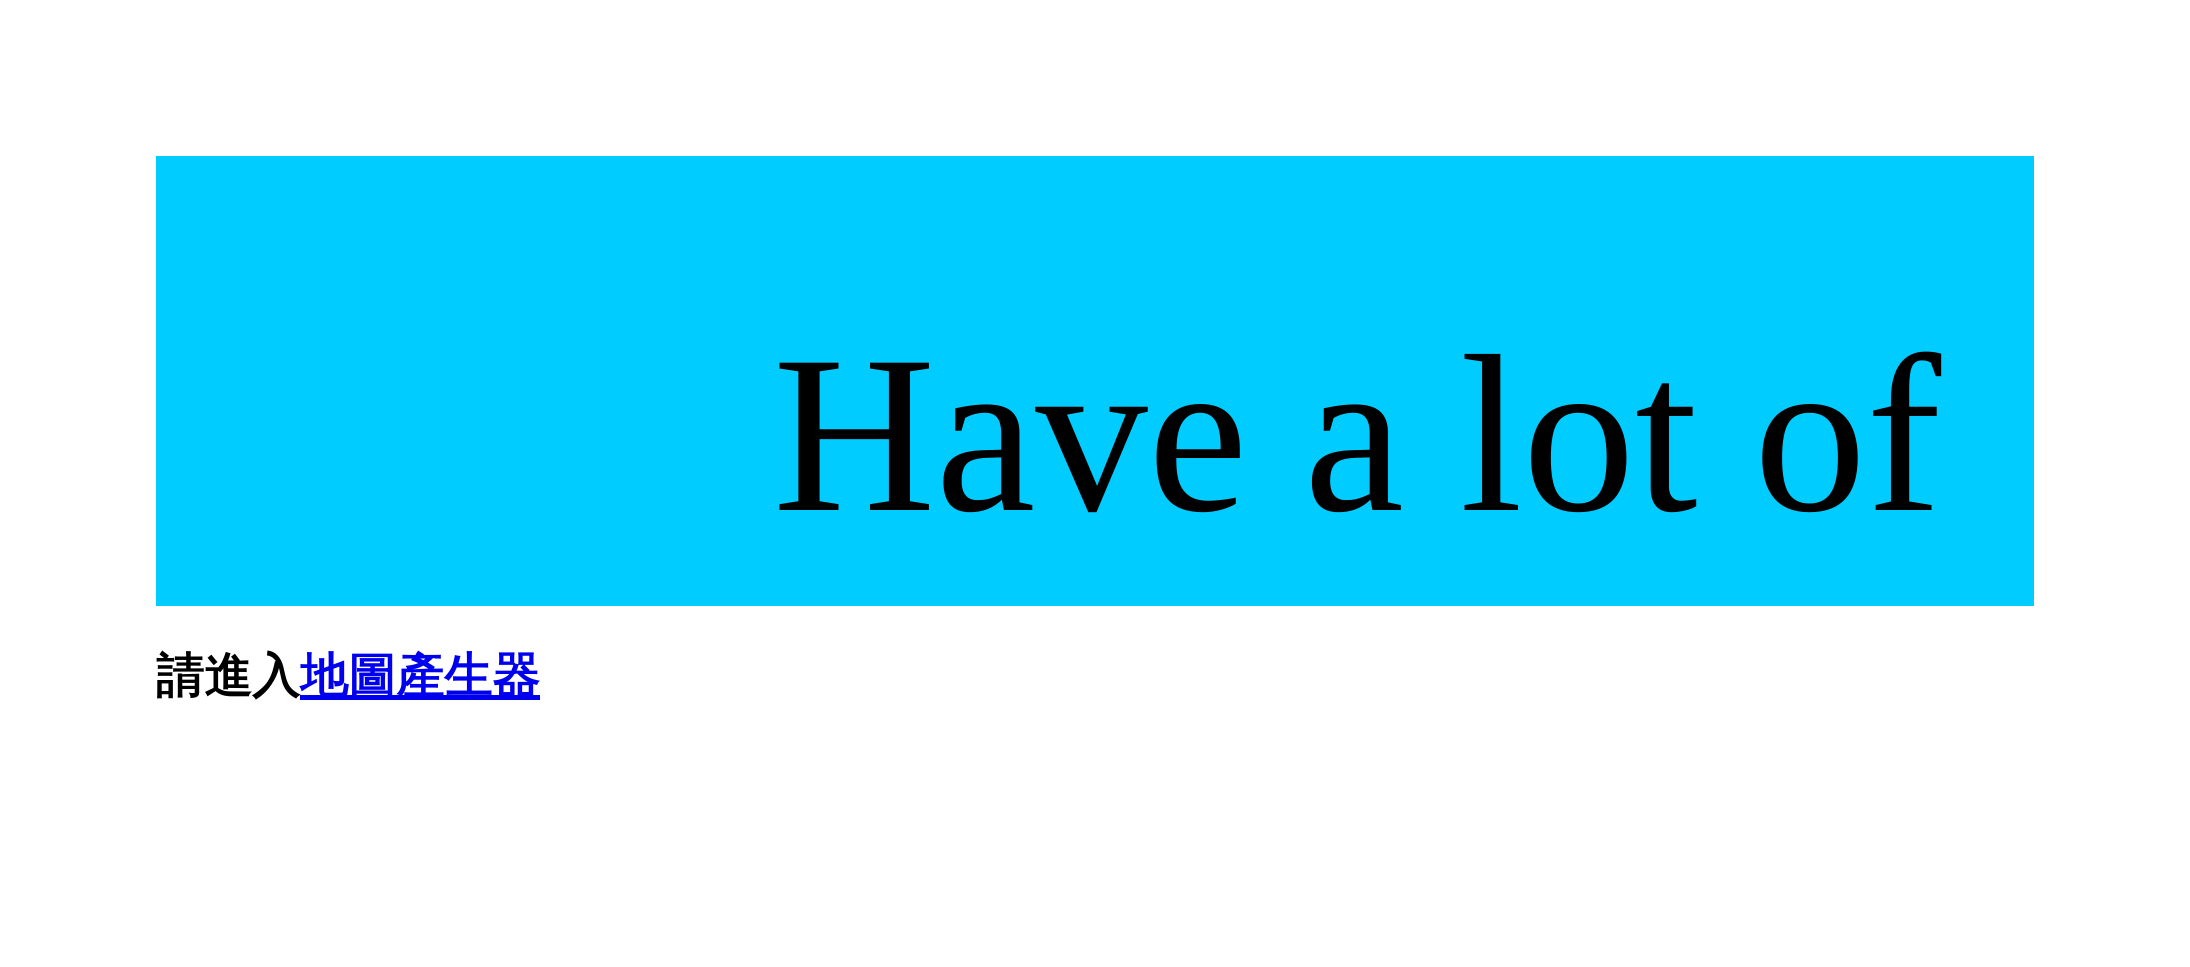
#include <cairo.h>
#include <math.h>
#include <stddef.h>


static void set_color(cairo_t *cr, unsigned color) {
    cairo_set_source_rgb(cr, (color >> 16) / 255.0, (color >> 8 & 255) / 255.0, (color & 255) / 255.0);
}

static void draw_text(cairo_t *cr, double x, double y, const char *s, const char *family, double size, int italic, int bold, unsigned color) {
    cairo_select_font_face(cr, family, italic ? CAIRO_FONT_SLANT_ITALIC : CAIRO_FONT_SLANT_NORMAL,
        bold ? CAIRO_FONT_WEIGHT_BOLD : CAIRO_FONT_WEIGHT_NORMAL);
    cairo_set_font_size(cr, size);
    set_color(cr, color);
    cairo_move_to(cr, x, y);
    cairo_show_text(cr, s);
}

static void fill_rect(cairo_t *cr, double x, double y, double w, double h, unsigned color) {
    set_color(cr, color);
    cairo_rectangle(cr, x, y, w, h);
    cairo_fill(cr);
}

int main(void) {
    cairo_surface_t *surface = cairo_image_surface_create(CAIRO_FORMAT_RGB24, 2190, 967);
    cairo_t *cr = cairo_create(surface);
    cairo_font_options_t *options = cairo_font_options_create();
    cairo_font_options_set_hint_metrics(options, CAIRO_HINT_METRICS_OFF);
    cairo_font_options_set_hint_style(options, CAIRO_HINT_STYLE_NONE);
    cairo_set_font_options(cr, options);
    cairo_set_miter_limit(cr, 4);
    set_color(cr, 0xFFFFFF);
    cairo_paint(cr);
    fill_rect(cr, 156, 156, 1878, 450, 0x00CCFF);
    draw_text(cr, 773, 510, "Have a lot of", "Liberation Serif", 225, 0, 0, 0x000000);
    draw_text(cr, 156, 692, "請進入", "WenQuanYi Zen Hei", 48, 0, 1, 0x000000);
    fill_rect(cr, 300, 695, 240, 5, 0x0000EE);
    draw_text(cr, 300, 692, "地圖產生器", "WenQuanYi Zen Hei", 48, 0, 1, 0x0000EE);
    cairo_surface_write_to_png(surface, "output.png");
    cairo_font_options_destroy(options);
    cairo_destroy(cr);
    cairo_surface_destroy(surface);
    return 0;
}
